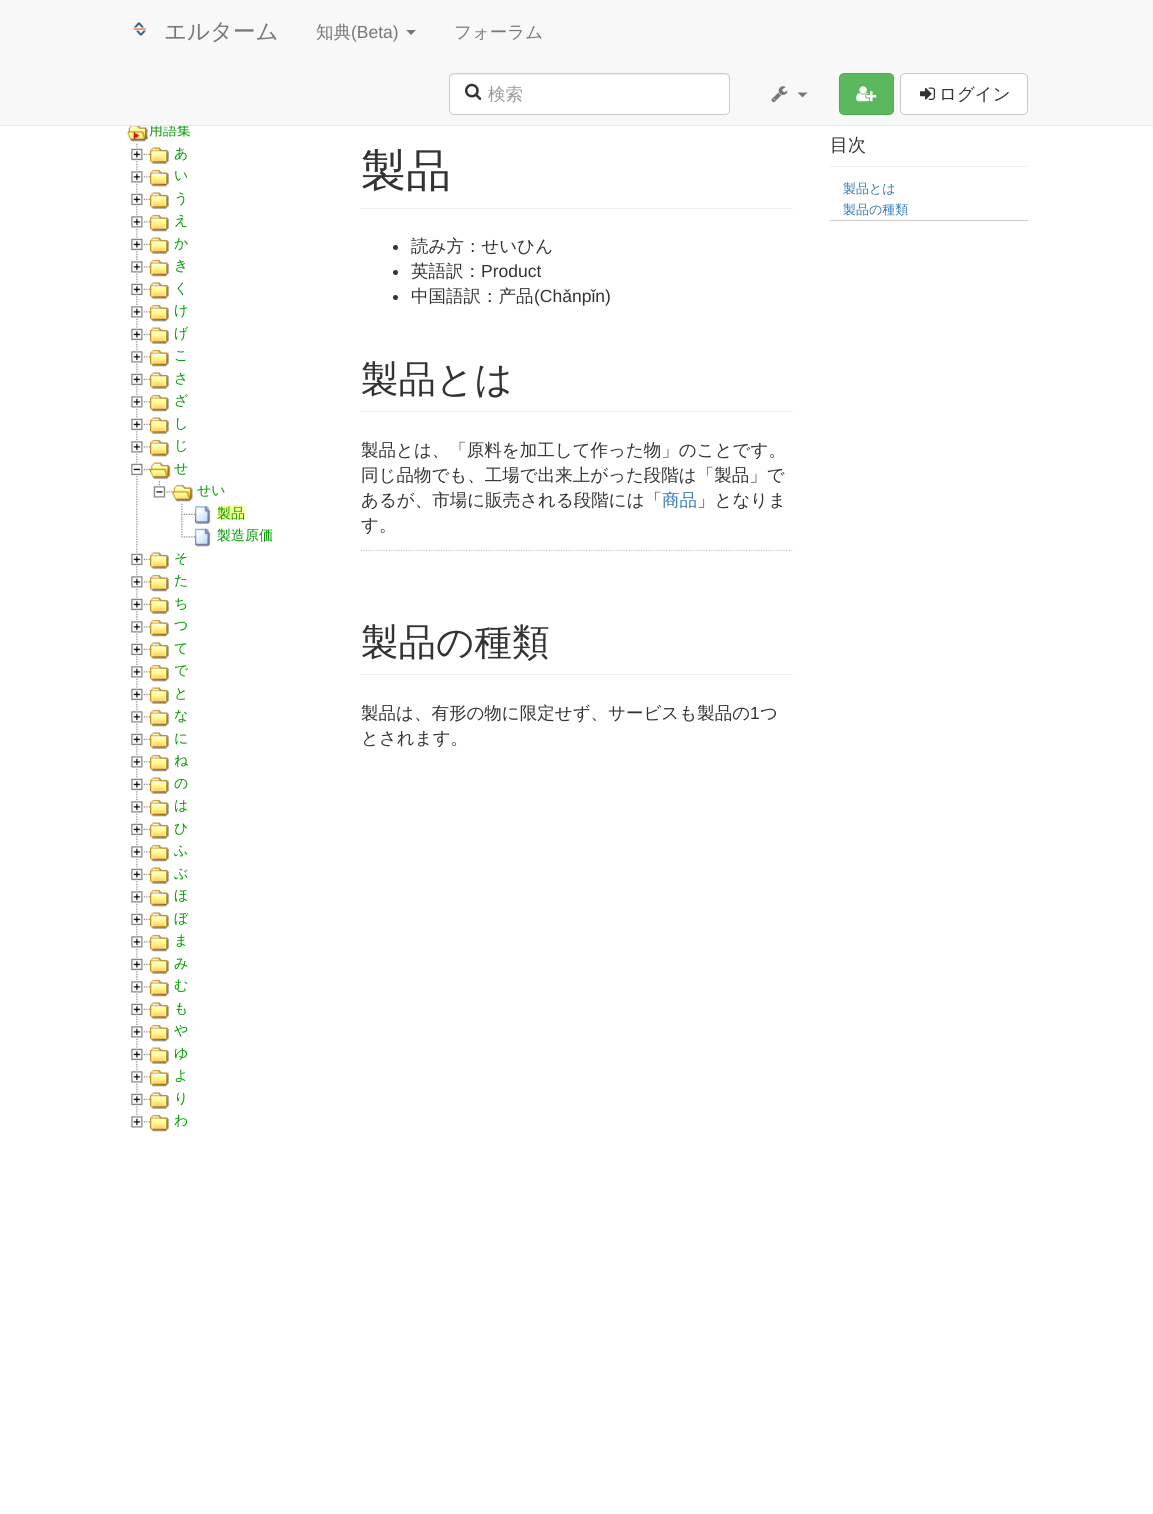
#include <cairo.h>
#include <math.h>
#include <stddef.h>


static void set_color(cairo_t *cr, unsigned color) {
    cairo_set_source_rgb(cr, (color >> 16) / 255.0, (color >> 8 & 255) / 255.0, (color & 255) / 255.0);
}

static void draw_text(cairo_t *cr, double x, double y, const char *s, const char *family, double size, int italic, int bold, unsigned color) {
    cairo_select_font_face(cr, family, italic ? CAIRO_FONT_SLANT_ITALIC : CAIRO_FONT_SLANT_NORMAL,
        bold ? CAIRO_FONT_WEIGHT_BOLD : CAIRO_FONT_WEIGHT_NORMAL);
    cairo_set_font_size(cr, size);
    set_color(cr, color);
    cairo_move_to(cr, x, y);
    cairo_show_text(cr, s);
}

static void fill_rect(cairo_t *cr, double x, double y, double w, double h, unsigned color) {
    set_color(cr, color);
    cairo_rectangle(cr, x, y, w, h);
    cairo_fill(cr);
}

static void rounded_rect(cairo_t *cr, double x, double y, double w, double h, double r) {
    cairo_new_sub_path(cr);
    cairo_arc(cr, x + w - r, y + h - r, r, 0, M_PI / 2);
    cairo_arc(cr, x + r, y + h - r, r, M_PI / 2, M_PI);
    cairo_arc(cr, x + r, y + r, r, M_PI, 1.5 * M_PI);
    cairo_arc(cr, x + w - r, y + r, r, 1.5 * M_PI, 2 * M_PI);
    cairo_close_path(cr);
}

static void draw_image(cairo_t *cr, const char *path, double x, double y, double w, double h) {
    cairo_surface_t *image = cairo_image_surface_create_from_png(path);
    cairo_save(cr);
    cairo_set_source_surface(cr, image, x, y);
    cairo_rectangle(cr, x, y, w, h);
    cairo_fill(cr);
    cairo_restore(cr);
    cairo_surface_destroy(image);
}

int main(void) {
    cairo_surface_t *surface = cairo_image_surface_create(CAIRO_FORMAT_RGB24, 1153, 1514);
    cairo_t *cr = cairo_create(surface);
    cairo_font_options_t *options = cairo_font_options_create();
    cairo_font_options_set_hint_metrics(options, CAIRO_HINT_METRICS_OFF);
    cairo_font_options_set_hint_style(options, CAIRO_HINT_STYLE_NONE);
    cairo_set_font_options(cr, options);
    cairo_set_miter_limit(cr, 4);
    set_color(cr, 0xFFFFFF);
    cairo_paint(cr);
    draw_text(cr, 149, 135, "用語集", "WenQuanYi Zen Hei Medium", 14, 0, 0, 0x009900);
    fill_rect(cr, 0, 0, 1153, 125, 0xF8F8F8);
    fill_rect(cr, 0, 125, 1153, 1, 0xE7E7E7);
    draw_image(cr, "assets/img1.png", 133, 22, 14, 17);
    draw_text(cr, 164, 39, "エルターム", "WenQuanYi Zen Hei Medium", 22.5, 0, 0, 0x777777);
    draw_text(cr, 316, 38, "知典", "WenQuanYi Zen Hei Medium", 17.5, 0, 0, 0x777777);
    draw_text(cr, 351, 38, "(Beta)", "Liberation Sans", 17.5, 0, 0, 0x777777);
    cairo_new_path(cr);
    cairo_move_to(cr, 406, 30);
    cairo_line_to(cr, 416, 30);
    cairo_line_to(cr, 411, 35);
    cairo_close_path(cr);
    cairo_fill(cr);
    draw_text(cr, 454, 38, "フォーラム", "WenQuanYi Zen Hei Medium", 17.5, 0, 0, 0x777777);
    set_color(cr, 0xFFFFFF);
    rounded_rect(cr, 449, 73, 281, 42, 5);
    cairo_fill(cr);
    set_color(cr, 0xECECEC);
    cairo_new_path(cr);
    cairo_move_to(cr, 454, 75);
    cairo_line_to(cr, 725, 75);
    cairo_curve_to(cr, 727, 75, 729, 77, 729, 79);
    cairo_curve_to(cr, 729, 76, 728, 74, 725, 74);
    cairo_line_to(cr, 454, 74);
    cairo_curve_to(cr, 451, 74, 450, 76, 450, 79);
    cairo_curve_to(cr, 450, 77, 452, 75, 454, 75);
    cairo_close_path(cr);
    cairo_fill(cr);
    rounded_rect(cr, 449.5, 73.5, 280, 41, 4.5);
    set_color(cr, 0xCCCCCC);
    cairo_set_line_width(cr, 1);
    cairo_stroke(cr);
    draw_image(cr, "assets/img2.png", 465, 83, 17, 17);
    draw_text(cr, 488, 100, "検索", "WenQuanYi Zen Hei Medium", 17.5, 0, 0, 0x999999);
    draw_image(cr, "assets/img3.png", 771, 86, 17, 17);
    set_color(cr, 0x777777);
    cairo_new_path(cr);
    cairo_move_to(cr, 797.5, 92.5);
    cairo_line_to(cr, 807.5, 92.5);
    cairo_line_to(cr, 802.5, 97.5);
    cairo_close_path(cr);
    cairo_fill(cr);
    set_color(cr, 0x5CB85C);
    rounded_rect(cr, 839.5, 73.5, 54, 41, 4.5);
    cairo_fill_preserve(cr);
    set_color(cr, 0x4CAE4C);
    cairo_stroke(cr);
    draw_image(cr, "assets/img4.png", 856, 86, 21, 16);
    set_color(cr, 0xFFFFFF);
    rounded_rect(cr, 900.5, 73.5, 127, 41, 4.5);
    cairo_fill_preserve(cr);
    set_color(cr, 0xCCCCCC);
    cairo_stroke(cr);
    draw_image(cr, "assets/img5.png", 920, 87, 15, 13);
    draw_text(cr, 939, 100, "ログイン", "WenQuanYi Zen Hei Medium", 17.5, 0, 0, 0x333333);
    draw_image(cr, "assets/img6.png", 127, 126, 21, 16);
    draw_image(cr, "assets/img7.png", 131, 143, 19, 23);
    draw_image(cr, "assets/img8.png", 150, 147, 19, 17);
    draw_text(cr, 174, 158, "あ", "WenQuanYi Zen Hei Medium", 14, 0, 0, 0x009900);
    draw_image(cr, "assets/img9.png", 131, 166, 19, 22);
    draw_image(cr, "assets/img10.png", 150, 169, 19, 18);
    draw_text(cr, 174, 180, "い", "WenQuanYi Zen Hei Medium", 14, 0, 0, 0x009900);
    draw_image(cr, "assets/img7.png", 131, 188, 19, 23);
    draw_image(cr, "assets/img8.png", 150, 192, 19, 17);
    draw_text(cr, 174, 203, "う", "WenQuanYi Zen Hei Medium", 14, 0, 0, 0x009900);
    draw_image(cr, "assets/img9.png", 131, 211, 19, 22);
    draw_image(cr, "assets/img10.png", 150, 214, 19, 18);
    draw_text(cr, 174, 225, "え", "WenQuanYi Zen Hei Medium", 14, 0, 0, 0x009900);
    draw_image(cr, "assets/img7.png", 131, 233, 19, 23);
    draw_image(cr, "assets/img8.png", 150, 237, 19, 17);
    draw_text(cr, 174, 248, "か", "WenQuanYi Zen Hei Medium", 14, 0, 0, 0x009900);
    draw_image(cr, "assets/img11.png", 131, 256, 19, 22);
    draw_image(cr, "assets/img10.png", 150, 259, 19, 18);
    draw_text(cr, 174, 270, "き", "WenQuanYi Zen Hei Medium", 14, 0, 0, 0x009900);
    draw_image(cr, "assets/img12.png", 131, 278, 19, 23);
    draw_image(cr, "assets/img13.png", 150, 282, 19, 17);
    draw_text(cr, 174, 293, "く", "WenQuanYi Zen Hei Medium", 14, 0, 0, 0x009900);
    draw_image(cr, "assets/img9.png", 131, 301, 19, 22);
    draw_image(cr, "assets/img10.png", 150, 304, 19, 18);
    draw_text(cr, 174, 315, "け", "WenQuanYi Zen Hei Medium", 14, 0, 0, 0x009900);
    draw_image(cr, "assets/img7.png", 131, 323, 19, 23);
    draw_image(cr, "assets/img8.png", 150, 327, 19, 17);
    draw_text(cr, 174, 338, "げ", "WenQuanYi Zen Hei Medium", 14, 0, 0, 0x009900);
    draw_image(cr, "assets/img9.png", 131, 346, 19, 22);
    draw_image(cr, "assets/img10.png", 150, 349, 19, 18);
    draw_text(cr, 174, 360, "こ", "WenQuanYi Zen Hei Medium", 14, 0, 0, 0x009900);
    draw_image(cr, "assets/img7.png", 131, 368, 19, 23);
    draw_image(cr, "assets/img8.png", 150, 372, 19, 17);
    draw_text(cr, 174, 383, "さ", "WenQuanYi Zen Hei Medium", 14, 0, 0, 0x009900);
    draw_image(cr, "assets/img9.png", 131, 391, 19, 22);
    draw_image(cr, "assets/img10.png", 150, 394, 19, 18);
    draw_text(cr, 174, 405, "ざ", "WenQuanYi Zen Hei Medium", 14, 0, 0, 0x009900);
    draw_image(cr, "assets/img7.png", 131, 413, 19, 23);
    draw_image(cr, "assets/img8.png", 150, 417, 19, 17);
    draw_text(cr, 174, 428, "し", "WenQuanYi Zen Hei Medium", 14, 0, 0, 0x009900);
    draw_image(cr, "assets/img9.png", 131, 436, 19, 22);
    draw_image(cr, "assets/img10.png", 150, 439, 19, 18);
    draw_text(cr, 174, 450, "じ", "WenQuanYi Zen Hei Medium", 14, 0, 0, 0x009900);
    draw_image(cr, "assets/img14.png", 131, 458, 19, 23);
    draw_image(cr, "assets/img15.png", 150, 462, 21, 17);
    draw_text(cr, 174, 473, "せ", "WenQuanYi Zen Hei Medium", 14, 0, 0, 0x009900);
    draw_image(cr, "assets/img16.png", 136, 481, 2, 22);
    draw_image(cr, "assets/img17.png", 153, 481, 20, 17);
    draw_image(cr, "assets/img18.png", 172, 484, 21, 18);
    draw_text(cr, 197, 495, "せい", "WenQuanYi Zen Hei Medium", 14, 0, 0, 0x009900);
    draw_image(cr, "assets/img19.png", 136, 503, 2, 23);
    draw_image(cr, "assets/img20.png", 181, 503, 14, 23);
    draw_image(cr, "assets/img21.png", 195, 506, 16, 18);
    fill_rect(cr, 218, 505, 27, 15, 0xFFFF99);
    draw_text(cr, 217, 518, "製品", "WenQuanYi Zen Hei Medium", 14, 0, 0, 0x009900);
    draw_image(cr, "assets/img16.png", 136, 526, 2, 22);
    draw_image(cr, "assets/img22.png", 181, 526, 14, 12);
    draw_image(cr, "assets/img23.png", 195, 528, 16, 19);
    draw_text(cr, 217, 540, "製造原価", "WenQuanYi Zen Hei Medium", 14, 0, 0, 0x009900);
    draw_image(cr, "assets/img7.png", 131, 548, 19, 23);
    draw_image(cr, "assets/img8.png", 150, 552, 19, 17);
    draw_text(cr, 174, 563, "そ", "WenQuanYi Zen Hei Medium", 14, 0, 0, 0x009900);
    draw_image(cr, "assets/img24.png", 131, 571, 19, 22);
    draw_image(cr, "assets/img10.png", 150, 574, 19, 18);
    draw_text(cr, 174, 585, "た", "WenQuanYi Zen Hei Medium", 14, 0, 0, 0x009900);
    draw_image(cr, "assets/img7.png", 131, 593, 19, 23);
    draw_image(cr, "assets/img8.png", 150, 597, 19, 17);
    draw_text(cr, 174, 608, "ち", "WenQuanYi Zen Hei Medium", 14, 0, 0, 0x009900);
    draw_image(cr, "assets/img9.png", 131, 616, 19, 22);
    draw_image(cr, "assets/img10.png", 150, 619, 19, 18);
    draw_text(cr, 174, 630, "つ", "WenQuanYi Zen Hei Medium", 14, 0, 0, 0x009900);
    draw_image(cr, "assets/img7.png", 131, 638, 19, 23);
    draw_image(cr, "assets/img8.png", 150, 642, 19, 17);
    draw_text(cr, 174, 653, "て", "WenQuanYi Zen Hei Medium", 14, 0, 0, 0x009900);
    draw_image(cr, "assets/img9.png", 131, 661, 19, 22);
    draw_image(cr, "assets/img10.png", 150, 664, 19, 18);
    draw_text(cr, 174, 675, "で", "WenQuanYi Zen Hei Medium", 14, 0, 0, 0x009900);
    draw_image(cr, "assets/img7.png", 131, 683, 19, 23);
    draw_image(cr, "assets/img8.png", 150, 687, 19, 17);
    draw_text(cr, 174, 698, "と", "WenQuanYi Zen Hei Medium", 14, 0, 0, 0x009900);
    draw_image(cr, "assets/img9.png", 131, 706, 19, 22);
    draw_image(cr, "assets/img10.png", 150, 709, 19, 18);
    draw_text(cr, 174, 720, "な", "WenQuanYi Zen Hei Medium", 14, 0, 0, 0x009900);
    draw_image(cr, "assets/img7.png", 131, 728, 19, 23);
    draw_image(cr, "assets/img8.png", 150, 732, 19, 17);
    draw_text(cr, 174, 743, "に", "WenQuanYi Zen Hei Medium", 14, 0, 0, 0x009900);
    draw_image(cr, "assets/img9.png", 131, 751, 19, 22);
    draw_image(cr, "assets/img10.png", 150, 754, 19, 18);
    draw_text(cr, 174, 765, "ね", "WenQuanYi Zen Hei Medium", 14, 0, 0, 0x009900);
    draw_image(cr, "assets/img25.png", 131, 773, 19, 23);
    draw_image(cr, "assets/img26.png", 150, 777, 19, 17);
    draw_text(cr, 174, 788, "の", "WenQuanYi Zen Hei Medium", 14, 0, 0, 0x009900);
    draw_image(cr, "assets/img9.png", 131, 796, 19, 22);
    draw_image(cr, "assets/img10.png", 150, 799, 19, 18);
    draw_text(cr, 174, 810, "は", "WenQuanYi Zen Hei Medium", 14, 0, 0, 0x009900);
    draw_image(cr, "assets/img7.png", 131, 818, 19, 23);
    draw_image(cr, "assets/img8.png", 150, 822, 19, 17);
    draw_text(cr, 174, 833, "ひ", "WenQuanYi Zen Hei Medium", 14, 0, 0, 0x009900);
    draw_image(cr, "assets/img9.png", 131, 841, 19, 22);
    draw_image(cr, "assets/img10.png", 150, 844, 19, 18);
    draw_text(cr, 174, 855, "ふ", "WenQuanYi Zen Hei Medium", 14, 0, 0, 0x009900);
    draw_image(cr, "assets/img7.png", 131, 863, 19, 23);
    draw_image(cr, "assets/img8.png", 150, 867, 19, 17);
    draw_text(cr, 174, 878, "ぶ", "WenQuanYi Zen Hei Medium", 14, 0, 0, 0x009900);
    draw_image(cr, "assets/img9.png", 131, 886, 19, 22);
    draw_image(cr, "assets/img10.png", 150, 889, 19, 18);
    draw_text(cr, 174, 900, "ほ", "WenQuanYi Zen Hei Medium", 14, 0, 0, 0x009900);
    draw_image(cr, "assets/img7.png", 131, 908, 19, 23);
    draw_image(cr, "assets/img8.png", 150, 912, 19, 17);
    draw_text(cr, 174, 923, "ぼ", "WenQuanYi Zen Hei Medium", 14, 0, 0, 0x009900);
    draw_image(cr, "assets/img9.png", 131, 931, 19, 22);
    draw_image(cr, "assets/img10.png", 150, 934, 19, 18);
    draw_text(cr, 174, 945, "ま", "WenQuanYi Zen Hei Medium", 14, 0, 0, 0x009900);
    draw_image(cr, "assets/img7.png", 131, 953, 19, 23);
    draw_image(cr, "assets/img8.png", 150, 957, 19, 17);
    draw_text(cr, 174, 968, "み", "WenQuanYi Zen Hei Medium", 14, 0, 0, 0x009900);
    draw_image(cr, "assets/img9.png", 131, 976, 19, 22);
    draw_image(cr, "assets/img10.png", 150, 979, 19, 18);
    draw_text(cr, 174, 990, "む", "WenQuanYi Zen Hei Medium", 14, 0, 0, 0x009900);
    draw_image(cr, "assets/img7.png", 131, 998, 19, 23);
    draw_image(cr, "assets/img8.png", 150, 1002, 19, 17);
    draw_text(cr, 174, 1013, "も", "WenQuanYi Zen Hei Medium", 14, 0, 0, 0x009900);
    draw_image(cr, "assets/img27.png", 131, 1021, 19, 22);
    draw_image(cr, "assets/img28.png", 150, 1024, 19, 18);
    draw_text(cr, 174, 1035, "や", "WenQuanYi Zen Hei Medium", 14, 0, 0, 0x009900);
    draw_image(cr, "assets/img7.png", 131, 1043, 19, 23);
    draw_image(cr, "assets/img8.png", 150, 1047, 19, 17);
    draw_text(cr, 174, 1058, "ゆ", "WenQuanYi Zen Hei Medium", 14, 0, 0, 0x009900);
    draw_image(cr, "assets/img9.png", 131, 1066, 19, 22);
    draw_image(cr, "assets/img10.png", 150, 1069, 19, 18);
    draw_text(cr, 174, 1080, "よ", "WenQuanYi Zen Hei Medium", 14, 0, 0, 0x009900);
    draw_image(cr, "assets/img7.png", 131, 1088, 19, 23);
    draw_image(cr, "assets/img8.png", 150, 1092, 19, 17);
    draw_text(cr, 174, 1103, "り", "WenQuanYi Zen Hei Medium", 14, 0, 0, 0x009900);
    draw_image(cr, "assets/img29.png", 131, 1111, 19, 17);
    draw_image(cr, "assets/img10.png", 150, 1114, 19, 18);
    draw_text(cr, 174, 1125, "わ", "WenQuanYi Zen Hei Medium", 14, 0, 0, 0x009900);
    fill_rect(cr, 361, 208, 432, 1, 0xEEEEEE);
    draw_text(cr, 361, 186, "製品", "WenQuanYi Zen Hei Medium", 45, 0, 0, 0x333333);
    cairo_new_path(cr);
    cairo_arc(cr, 395.5, 247.5, 2.5, 0, 2 * M_PI);
    cairo_fill(cr);
    draw_text(cr, 411, 252, "読み方：せいひん", "WenQuanYi Zen Hei Medium", 17.5, 0, 0, 0x333333);
    cairo_new_path(cr);
    cairo_arc(cr, 395.5, 272.5, 2.5, 0, 2 * M_PI);
    cairo_fill(cr);
    draw_text(cr, 411, 277, "英語訳：", "WenQuanYi Zen Hei Medium", 17.5, 0, 0, 0x333333);
    draw_text(cr, 481, 277, "Product", "Liberation Sans", 17.5, 0, 0, 0x333333);
    cairo_new_path(cr);
    cairo_arc(cr, 395.5, 297.5, 2.5, 0, 2 * M_PI);
    cairo_fill(cr);
    draw_text(cr, 411, 302, "中国語訳：产品", "WenQuanYi Zen Hei Medium", 17.5, 0, 0, 0x333333);
    draw_text(cr, 534, 302, "(Chǎnpǐn)", "Liberation Sans", 17.5, 0, 0, 0x333333);
    fill_rect(cr, 361, 411, 432, 1, 0xEEEEEE);
    draw_text(cr, 361, 392, "製品とは", "WenQuanYi Zen Hei Medium", 37.5, 0, 0, 0x333333);
    draw_text(cr, 361, 456, "製品とは、「原料を加工して作った物」のことです。", "WenQuanYi Zen Hei Medium", 17.5, 0, 0, 0x333333);
    draw_text(cr, 361, 481, "同じ品物でも、工場で出来上がった段階は「製品」で", "WenQuanYi Zen Hei Medium", 17.5, 0, 0, 0x333333);
    draw_text(cr, 361, 506, "あるが、市場に販売される段階には「", "WenQuanYi Zen Hei Medium", 17.5, 0, 0, 0x333333);
    draw_text(cr, 662, 506, "商品", "WenQuanYi Zen Hei Medium", 17.5, 0, 0, 0x337AB7);
    draw_text(cr, 697, 506, "」となりま", "WenQuanYi Zen Hei Medium", 17.5, 0, 0, 0x333333);
    draw_text(cr, 361, 531, "す。", "WenQuanYi Zen Hei Medium", 17.5, 0, 0, 0x333333);
    cairo_new_path(cr);
    cairo_move_to(cr, 361, 550.5);
    cairo_line_to(cr, 792.5, 550.5);
    set_color(cr, 0xCCCCCC);
    cairo_set_line_width(cr, 1.2);
    cairo_set_dash(cr, (double[]){1.25, 1.25}, 2, 0);
    cairo_stroke(cr);
    fill_rect(cr, 361, 674, 432, 1, 0xEEEEEE);
    draw_text(cr, 361, 655, "製品の種類", "WenQuanYi Zen Hei Medium", 37.5, 0, 0, 0x333333);
    draw_text(cr, 361, 719, "製品は、有形の物に限定せず、サービスも製品の", "WenQuanYi Zen Hei Medium", 17.5, 0, 0, 0x333333);
    draw_text(cr, 750, 719, "1", "Liberation Sans", 17.5, 0, 0, 0x333333);
    draw_text(cr, 760, 719, "つ", "WenQuanYi Zen Hei Medium", 17.5, 0, 0, 0x333333);
    draw_text(cr, 361, 744, "とされます。", "WenQuanYi Zen Hei Medium", 17.5, 0, 0, 0x333333);
    fill_rect(cr, 830, 220, 198, 1, 0xCCCCCC);
    fill_rect(cr, 830, 166, 198, 1, 0xEEEEEE);
    draw_text(cr, 830, 151, "目次", "WenQuanYi Zen Hei Medium", 18, 0, 0, 0x333333);
    draw_text(cr, 843, 193, "製品とは", "WenQuanYi Zen Hei Medium", 13, 0, 0, 0x337AB7);
    draw_text(cr, 843, 214, "製品の種類", "WenQuanYi Zen Hei Medium", 13, 0, 0, 0x337AB7);
    cairo_surface_write_to_png(surface, "output.png");
    cairo_font_options_destroy(options);
    cairo_destroy(cr);
    cairo_surface_destroy(surface);
    return 0;
}
